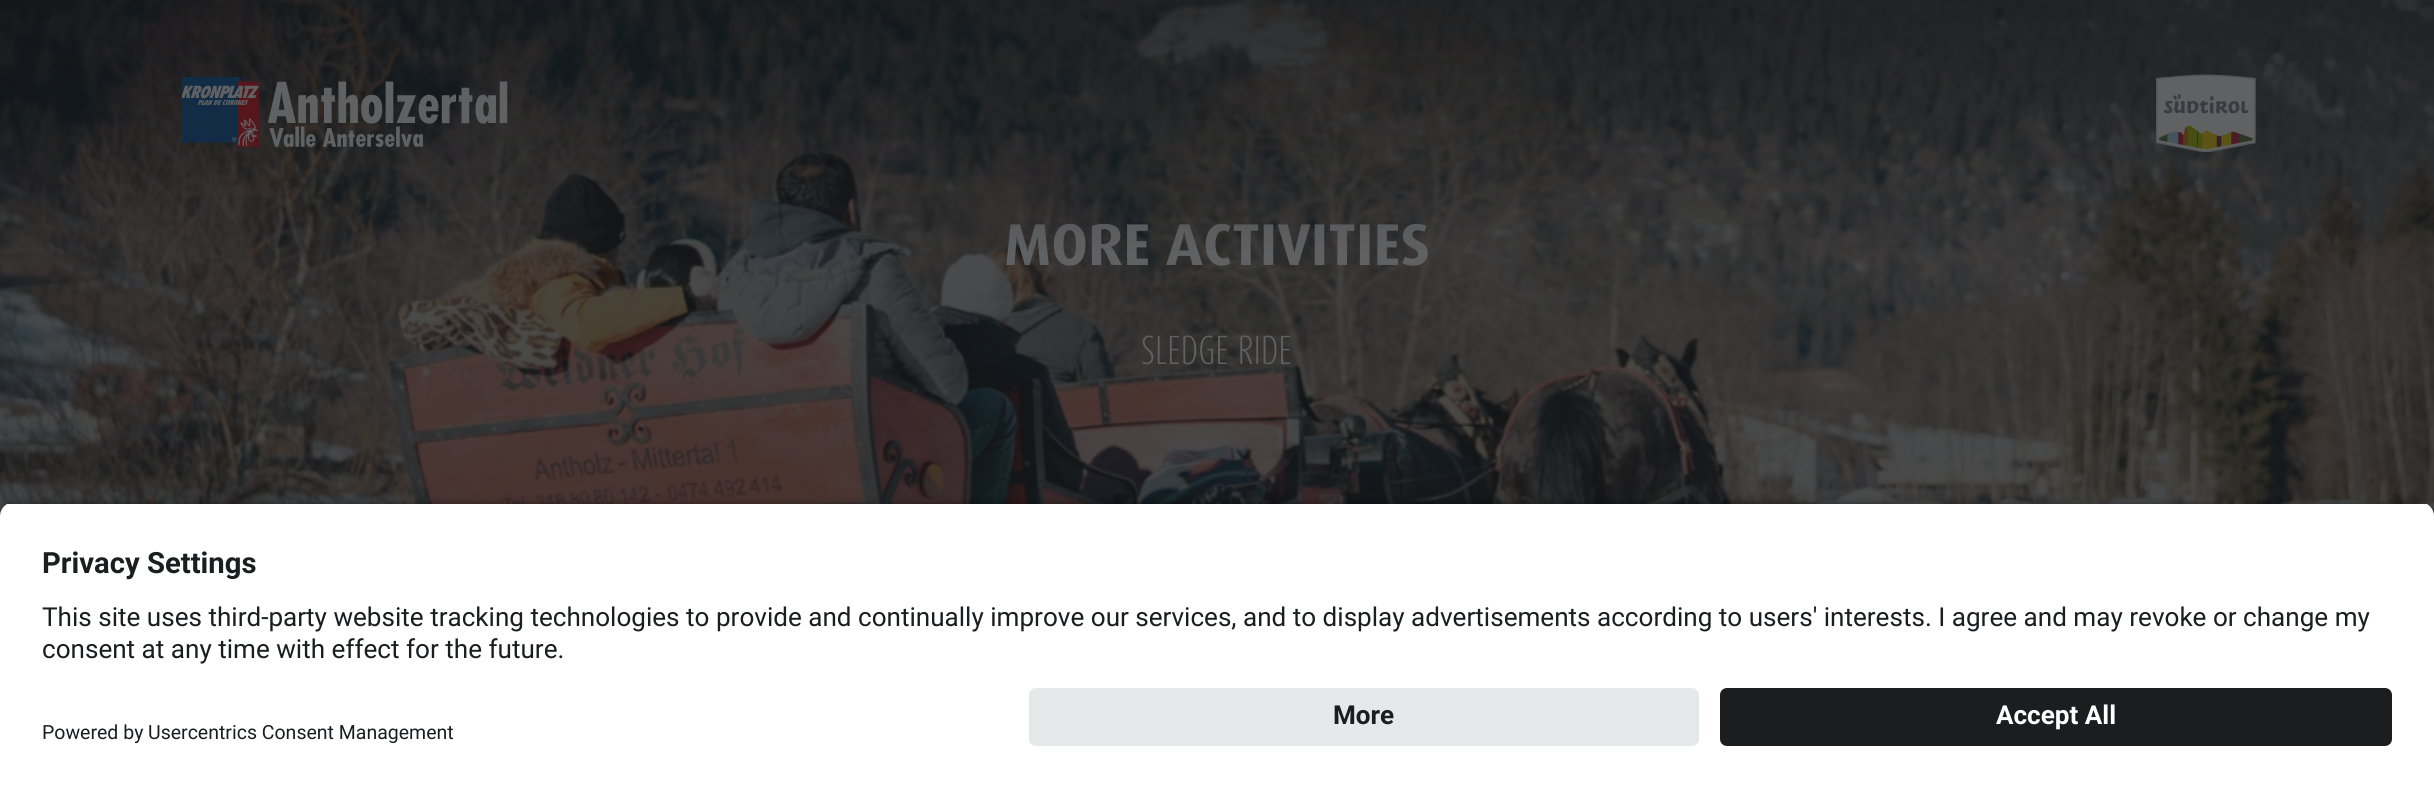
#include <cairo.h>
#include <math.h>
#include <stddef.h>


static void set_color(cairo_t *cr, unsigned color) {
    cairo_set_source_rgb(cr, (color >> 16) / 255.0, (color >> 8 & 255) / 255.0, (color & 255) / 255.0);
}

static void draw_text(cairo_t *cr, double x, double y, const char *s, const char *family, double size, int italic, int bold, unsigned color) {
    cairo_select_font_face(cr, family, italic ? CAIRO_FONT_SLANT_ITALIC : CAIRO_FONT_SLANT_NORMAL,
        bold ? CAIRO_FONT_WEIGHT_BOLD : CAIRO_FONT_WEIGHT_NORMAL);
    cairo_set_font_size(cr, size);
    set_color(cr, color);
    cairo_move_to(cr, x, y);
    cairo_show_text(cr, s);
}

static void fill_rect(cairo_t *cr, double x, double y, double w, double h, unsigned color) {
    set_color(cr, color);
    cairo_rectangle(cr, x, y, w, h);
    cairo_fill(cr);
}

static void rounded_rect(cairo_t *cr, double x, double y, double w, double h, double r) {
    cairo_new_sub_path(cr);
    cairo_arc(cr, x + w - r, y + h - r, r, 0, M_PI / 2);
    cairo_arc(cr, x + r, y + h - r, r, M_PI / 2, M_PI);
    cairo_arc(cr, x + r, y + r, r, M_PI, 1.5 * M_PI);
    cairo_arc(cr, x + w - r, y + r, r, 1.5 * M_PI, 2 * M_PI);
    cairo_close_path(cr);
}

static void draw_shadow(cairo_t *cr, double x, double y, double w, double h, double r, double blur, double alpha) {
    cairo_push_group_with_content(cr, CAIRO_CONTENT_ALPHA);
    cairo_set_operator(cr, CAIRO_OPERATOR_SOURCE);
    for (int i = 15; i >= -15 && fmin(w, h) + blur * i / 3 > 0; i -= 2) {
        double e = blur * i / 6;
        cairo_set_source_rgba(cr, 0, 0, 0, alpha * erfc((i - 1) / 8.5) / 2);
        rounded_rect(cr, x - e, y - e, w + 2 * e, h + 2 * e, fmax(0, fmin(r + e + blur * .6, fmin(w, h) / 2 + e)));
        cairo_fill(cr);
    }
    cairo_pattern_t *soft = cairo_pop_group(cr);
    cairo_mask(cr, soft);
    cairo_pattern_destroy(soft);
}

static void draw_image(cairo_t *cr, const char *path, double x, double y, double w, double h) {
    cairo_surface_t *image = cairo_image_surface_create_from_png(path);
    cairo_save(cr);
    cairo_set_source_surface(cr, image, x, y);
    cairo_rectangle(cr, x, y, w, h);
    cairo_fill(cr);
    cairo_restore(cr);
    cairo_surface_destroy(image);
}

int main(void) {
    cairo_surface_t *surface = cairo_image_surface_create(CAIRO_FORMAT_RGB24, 2434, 786);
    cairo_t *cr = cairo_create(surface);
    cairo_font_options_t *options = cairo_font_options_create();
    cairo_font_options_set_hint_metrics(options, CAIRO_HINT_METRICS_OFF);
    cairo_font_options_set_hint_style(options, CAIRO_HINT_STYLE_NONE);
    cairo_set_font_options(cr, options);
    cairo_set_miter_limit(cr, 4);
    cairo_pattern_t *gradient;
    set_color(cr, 0xFFFFFF);
    cairo_paint(cr);
    draw_image(cr, "assets/img3.png", 0, 0, 2434, 516);
    draw_text(cr, 1004, 265, "MORE ACTIVITIES", "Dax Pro", 59, 0, 1, 0x5F6162);
    gradient = cairo_pattern_create_linear(1217, 263, 1217, 0);
    cairo_pattern_add_color_stop_rgba(gradient, 0, 0.075, 0.078, 0.086, 0);
    cairo_pattern_add_color_stop_rgba(gradient, 1, 0.075, 0.078, 0.086, 0.5);
    cairo_set_source(cr, gradient);
    cairo_pattern_destroy(gradient);
    cairo_rectangle(cr, 0, 0, 2434, 250);
    cairo_fill(cr);
    draw_image(cr, "assets/img1.png", 182, 77, 326, 70);
    draw_image(cr, "assets/img2.png", 2156, 74, 100, 78);
    draw_text(cr, 1141, 364, "SLEDGE RIDE", "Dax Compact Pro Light", 33.5, 0, 0, 0x5F6162);
    set_color(cr, 0x000000);
    draw_shadow(cr, 0, 508, 2434, 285, 14, 6, 0.8);
    cairo_save(cr);
    cairo_new_path(cr);
    cairo_move_to(cr, 14, 502);
    cairo_line_to(cr, 2420, 502);
    cairo_curve_to(cr, 2427.5, 502, 2434, 508.5, 2434, 516);
    cairo_line_to(cr, 2434, 674);
    cairo_line_to(cr, 0, 674);
    cairo_line_to(cr, 0, 516);
    cairo_curve_to(cr, 0, 508.5, 6.5, 502, 14, 502);
    cairo_close_path(cr);
    cairo_clip(cr);
    fill_rect(cr, 0, 504, 2434, 170, 0xFFFFFF);
    cairo_restore(cr);
    draw_text(cr, 42, 573, "Privacy Settings", "Roboto", 29.25, 0, 1, 0x1B1D1F);
    draw_text(cr, 42, 626, "This site uses third-party website tracking technologies to provide and continually improve our services, and to display advertisements according to users' interests. I agree and may revoke or change my", "Roboto", 26.08, 0, 0, 0x1B1D1F);
    draw_text(cr, 42, 658, "consent at any time with effect for the future.", "Roboto", 26.08, 0, 0, 0x1B1D1F);
    fill_rect(cr, 0, 674, 2434, 112, 0xFFFFFF);
    set_color(cr, 0xE5E9EA);
    rounded_rect(cr, 1029, 688, 670, 58, 7);
    cairo_fill(cr);
    draw_text(cr, 1333, 724, "More", "Roboto", 26.08, 0, 1, 0x1B1D1F);
    rounded_rect(cr, 1720, 688, 672, 58, 7);
    cairo_fill(cr);
    draw_text(cr, 1996, 724, "Accept All", "Roboto", 26.08, 0, 1, 0xFFFFFF);
    draw_text(cr, 42, 739, "Powered by", "Roboto", 19.5, 0, 0, 0x1B1D1F);
    draw_text(cr, 148, 739, "Usercentrics Consent Management", "Roboto", 19.5, 0, 0, 0x1B1D1F);
    cairo_surface_write_to_png(surface, "output.png");
    cairo_font_options_destroy(options);
    cairo_destroy(cr);
    cairo_surface_destroy(surface);
    return 0;
}
